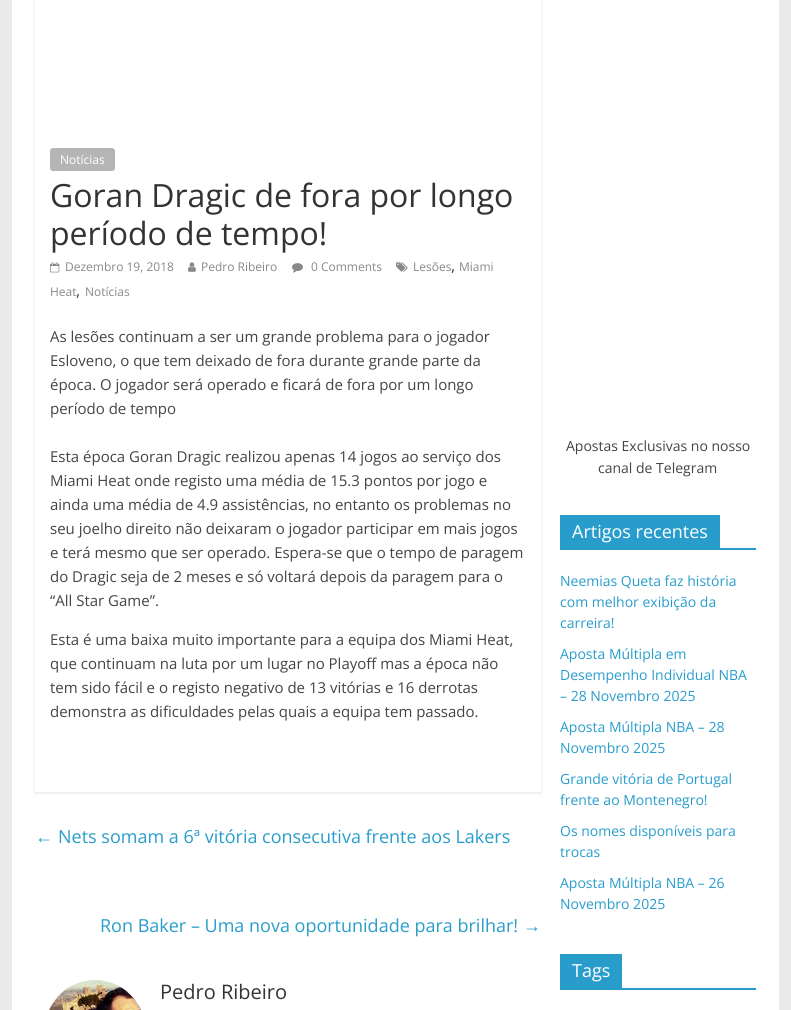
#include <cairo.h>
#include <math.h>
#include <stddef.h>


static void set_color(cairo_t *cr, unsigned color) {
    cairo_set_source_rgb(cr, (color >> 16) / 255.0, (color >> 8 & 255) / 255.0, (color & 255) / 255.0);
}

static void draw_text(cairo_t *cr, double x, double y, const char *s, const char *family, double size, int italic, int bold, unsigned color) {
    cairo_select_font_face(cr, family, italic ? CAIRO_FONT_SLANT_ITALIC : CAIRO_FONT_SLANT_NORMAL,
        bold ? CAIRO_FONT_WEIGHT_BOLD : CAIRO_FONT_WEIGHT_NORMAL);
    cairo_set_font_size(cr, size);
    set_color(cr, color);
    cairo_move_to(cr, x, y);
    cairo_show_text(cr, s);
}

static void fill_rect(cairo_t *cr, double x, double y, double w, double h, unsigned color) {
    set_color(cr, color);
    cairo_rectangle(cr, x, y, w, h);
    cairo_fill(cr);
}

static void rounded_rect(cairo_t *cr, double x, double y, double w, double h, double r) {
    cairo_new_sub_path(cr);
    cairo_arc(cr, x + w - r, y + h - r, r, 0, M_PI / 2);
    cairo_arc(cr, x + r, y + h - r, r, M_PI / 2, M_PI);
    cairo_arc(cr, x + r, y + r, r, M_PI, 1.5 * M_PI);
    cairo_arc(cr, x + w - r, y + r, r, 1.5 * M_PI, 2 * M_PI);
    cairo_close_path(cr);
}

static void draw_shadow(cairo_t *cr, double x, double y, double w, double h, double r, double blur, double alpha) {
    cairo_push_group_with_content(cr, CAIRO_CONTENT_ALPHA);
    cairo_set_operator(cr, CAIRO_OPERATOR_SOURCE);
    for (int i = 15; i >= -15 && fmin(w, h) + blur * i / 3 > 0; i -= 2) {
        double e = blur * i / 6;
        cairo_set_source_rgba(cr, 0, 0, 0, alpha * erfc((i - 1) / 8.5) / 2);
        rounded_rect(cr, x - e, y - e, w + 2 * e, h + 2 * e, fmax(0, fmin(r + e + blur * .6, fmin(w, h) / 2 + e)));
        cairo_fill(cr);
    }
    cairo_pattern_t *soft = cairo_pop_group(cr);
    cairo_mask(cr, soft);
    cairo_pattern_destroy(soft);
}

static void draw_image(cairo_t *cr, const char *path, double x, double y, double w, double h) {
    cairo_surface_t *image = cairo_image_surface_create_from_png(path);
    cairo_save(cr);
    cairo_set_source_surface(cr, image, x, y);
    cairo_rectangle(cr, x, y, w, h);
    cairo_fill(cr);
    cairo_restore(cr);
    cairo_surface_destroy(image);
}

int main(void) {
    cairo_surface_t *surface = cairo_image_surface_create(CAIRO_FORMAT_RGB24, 791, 1010);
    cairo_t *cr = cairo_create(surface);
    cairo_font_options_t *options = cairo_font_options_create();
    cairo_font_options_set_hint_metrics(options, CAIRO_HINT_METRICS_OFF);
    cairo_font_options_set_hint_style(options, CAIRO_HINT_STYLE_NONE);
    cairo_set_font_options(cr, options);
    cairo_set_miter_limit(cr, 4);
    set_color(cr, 0xEAEAEA);
    cairo_paint(cr);
    fill_rect(cr, 12, 0, 767, 1010, 0xFFFFFF);
    cairo_save(cr);
    cairo_set_fill_rule(cr, CAIRO_FILL_RULE_EVEN_ODD);
    cairo_new_path(cr);
    cairo_move_to(cr, 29, 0);
    cairo_line_to(cr, 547, 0);
    cairo_line_to(cr, 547, 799);
    cairo_line_to(cr, 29, 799);
    cairo_close_path(cr);
    cairo_move_to(cr, 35, -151);
    cairo_line_to(cr, 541, -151);
    cairo_line_to(cr, 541, 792);
    cairo_line_to(cr, 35, 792);
    cairo_close_path(cr);
    cairo_clip(cr);
    set_color(cr, 0x000000);
    draw_shadow(cr, 35, -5, 506, 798, 0, 1.5, 0.1);
    cairo_restore(cr);
    set_color(cr, 0xB5B5B5);
    rounded_rect(cr, 50, 148, 65, 23, 3);
    cairo_fill(cr);
    draw_text(cr, 60, 164, "Notícias", "Open Sans", 12, 0, 0, 0xFFFFFF);
    draw_text(cr, 50, 207, "Goran Dragic de fora por longo", "Open Sans", 32, 0, 0, 0x333333);
    draw_text(cr, 50, 245, "período de tempo!", "Open Sans", 32, 0, 0, 0x333333);
    draw_image(cr, "assets/img1.png", 50, 262, 10, 11);
    draw_text(cr, 65, 271, "Dezembro 19, 2018", "Open Sans", 12, 0, 0, 0x888888);
    draw_image(cr, "assets/img2.png", 188, 262, 8, 10);
    draw_text(cr, 201, 271, "Pedro Ribeiro", "Open Sans", 12, 0, 0, 0x888888);
    draw_image(cr, "assets/img3.png", 396, 262, 12, 10);
    draw_text(cr, 413, 271, "Lesões", "Open Sans", 12, 0, 0, 0x888888);
    draw_text(cr, 451, 271, ",", "Open Sans", 16, 0, 0, 0x444444);
    draw_text(cr, 459, 271, "Miami", "Open Sans", 12, 0, 0, 0x888888);
    draw_text(cr, 50, 296, "Heat", "Open Sans", 12, 0, 0, 0x888888);
    draw_text(cr, 76, 296, ",", "Open Sans", 16, 0, 0, 0x444444);
    draw_text(cr, 85, 296, "Notícias", "Open Sans", 12, 0, 0, 0x888888);
    draw_image(cr, "assets/img4.png", 292, 263, 11, 10);
    draw_text(cr, 311, 271, "0 Comments", "Open Sans", 12, 0, 0, 0x888888);
    draw_text(cr, 50, 342, "As lesões continuam a ser um grande problema para o jogador", "Open Sans", 15, 0, 0, 0x444444);
    draw_text(cr, 50, 366, "Esloveno, o que tem deixado de fora durante grande parte da", "Open Sans", 15, 0, 0, 0x444444);
    draw_text(cr, 50, 390, "época. O jogador será operado e ficará de fora por um longo", "Open Sans", 15, 0, 0, 0x444444);
    draw_text(cr, 50, 414, "período de tempo", "Open Sans", 15, 0, 0, 0x444444);
    draw_text(cr, 50, 462, "Esta época Goran Dragic realizou apenas 14 jogos ao serviço dos", "Open Sans", 15, 0, 0, 0x444444);
    draw_text(cr, 50, 486, "Miami Heat onde registo uma média de 15.3 pontos por jogo e", "Open Sans", 15, 0, 0, 0x444444);
    draw_text(cr, 50, 510, "ainda uma média de 4.9 assistências, no entanto os problemas no", "Open Sans", 15, 0, 0, 0x444444);
    draw_text(cr, 50, 534, "seu joelho direito não deixaram o jogador participar em mais jogos", "Open Sans", 15, 0, 0, 0x444444);
    draw_text(cr, 50, 558, "e terá mesmo que ser operado. Espera-se que o tempo de paragem", "Open Sans", 15, 0, 0, 0x444444);
    draw_text(cr, 50, 582, "do Dragic seja de 2 meses e só voltará depois da paragem para o", "Open Sans", 15, 0, 0, 0x444444);
    draw_text(cr, 50, 606, "“All Star Game”.", "Open Sans", 15, 0, 0, 0x444444);
    draw_text(cr, 50, 645, "Esta é uma baixa muito importante para a equipa dos Miami Heat,", "Open Sans", 15, 0, 0, 0x444444);
    draw_text(cr, 50, 669, "que continuam na luta por um lugar no Playoff mas a época não", "Open Sans", 15, 0, 0, 0x444444);
    draw_text(cr, 50, 693, "tem sido fácil e o registo negativo de 13 vitórias e 16 derrotas", "Open Sans", 15, 0, 0, 0x444444);
    draw_text(cr, 50, 717, "demonstra as dificuldades pelas quais a equipa tem passado.", "Open Sans", 15, 0, 0, 0x444444);
    draw_text(cr, 35, 843, "←", "Liberation Serif", 18, 0, 0, 0x289DCC);
    draw_text(cr, 58, 843, "Nets somam a 6ª vitória consecutiva frente aos Lakers", "Open Sans", 18, 0, 0, 0x289DCC);
    draw_text(cr, 100, 932, "Ron Baker – Uma nova oportunidade para brilhar!", "Open Sans", 18, 0, 0, 0x289DCC);
    draw_text(cr, 523, 932, "→", "Liberation Serif", 18, 0, 0, 0x289DCC);
    draw_image(cr, "assets/img5.png", 49, 980, 92, 30);
    draw_text(cr, 160, 999, "Pedro Ribeiro", "Open Sans", 20, 0, 0, 0x333333);
    draw_text(cr, 566, 451, "Apostas Exclusivas no nosso", "Open Sans", 14, 0, 0, 0x444444);
    draw_text(cr, 598, 473, "canal de Telegram", "Open Sans", 14, 0, 0, 0x444444);
    fill_rect(cr, 560, 548, 196, 2, 0x289DCC);
    fill_rect(cr, 560, 515, 160, 33, 0x289DCC);
    draw_text(cr, 572, 538, "Artigos recentes", "Open Sans", 18, 0, 0, 0xFFFFFF);
    draw_text(cr, 560, 586, "Neemias Queta faz história", "Open Sans", 14, 0, 0, 0x289DCC);
    draw_text(cr, 560, 607, "com melhor exibição da", "Open Sans", 14, 0, 0, 0x289DCC);
    draw_text(cr, 560, 628, "carreira!", "Open Sans", 14, 0, 0, 0x289DCC);
    draw_text(cr, 560, 659, "Aposta Múltipla em", "Open Sans", 14, 0, 0, 0x289DCC);
    draw_text(cr, 560, 680, "Desempenho Individual NBA", "Open Sans", 14, 0, 0, 0x289DCC);
    draw_text(cr, 560, 701, "– 28 Novembro 2025", "Open Sans", 14, 0, 0, 0x289DCC);
    draw_text(cr, 560, 732, "Aposta Múltipla NBA – 28", "Open Sans", 14, 0, 0, 0x289DCC);
    draw_text(cr, 560, 753, "Novembro 2025", "Open Sans", 14, 0, 0, 0x289DCC);
    draw_text(cr, 560, 784, "Grande vitória de Portugal", "Open Sans", 14, 0, 0, 0x289DCC);
    draw_text(cr, 560, 805, "frente ao Montenegro!", "Open Sans", 14, 0, 0, 0x289DCC);
    draw_text(cr, 560, 836, "Os nomes disponíveis para", "Open Sans", 14, 0, 0, 0x289DCC);
    draw_text(cr, 560, 857, "trocas", "Open Sans", 14, 0, 0, 0x289DCC);
    draw_text(cr, 560, 888, "Aposta Múltipla NBA – 26", "Open Sans", 14, 0, 0, 0x289DCC);
    draw_text(cr, 560, 909, "Novembro 2025", "Open Sans", 14, 0, 0, 0x289DCC);
    fill_rect(cr, 560, 988, 196, 2, 0x289DCC);
    fill_rect(cr, 560, 954, 62, 34, 0x289DCC);
    draw_text(cr, 572, 977, "Tags", "Open Sans", 18, 0, 0, 0xFFFFFF);
    cairo_surface_write_to_png(surface, "output.png");
    cairo_font_options_destroy(options);
    cairo_destroy(cr);
    cairo_surface_destroy(surface);
    return 0;
}
